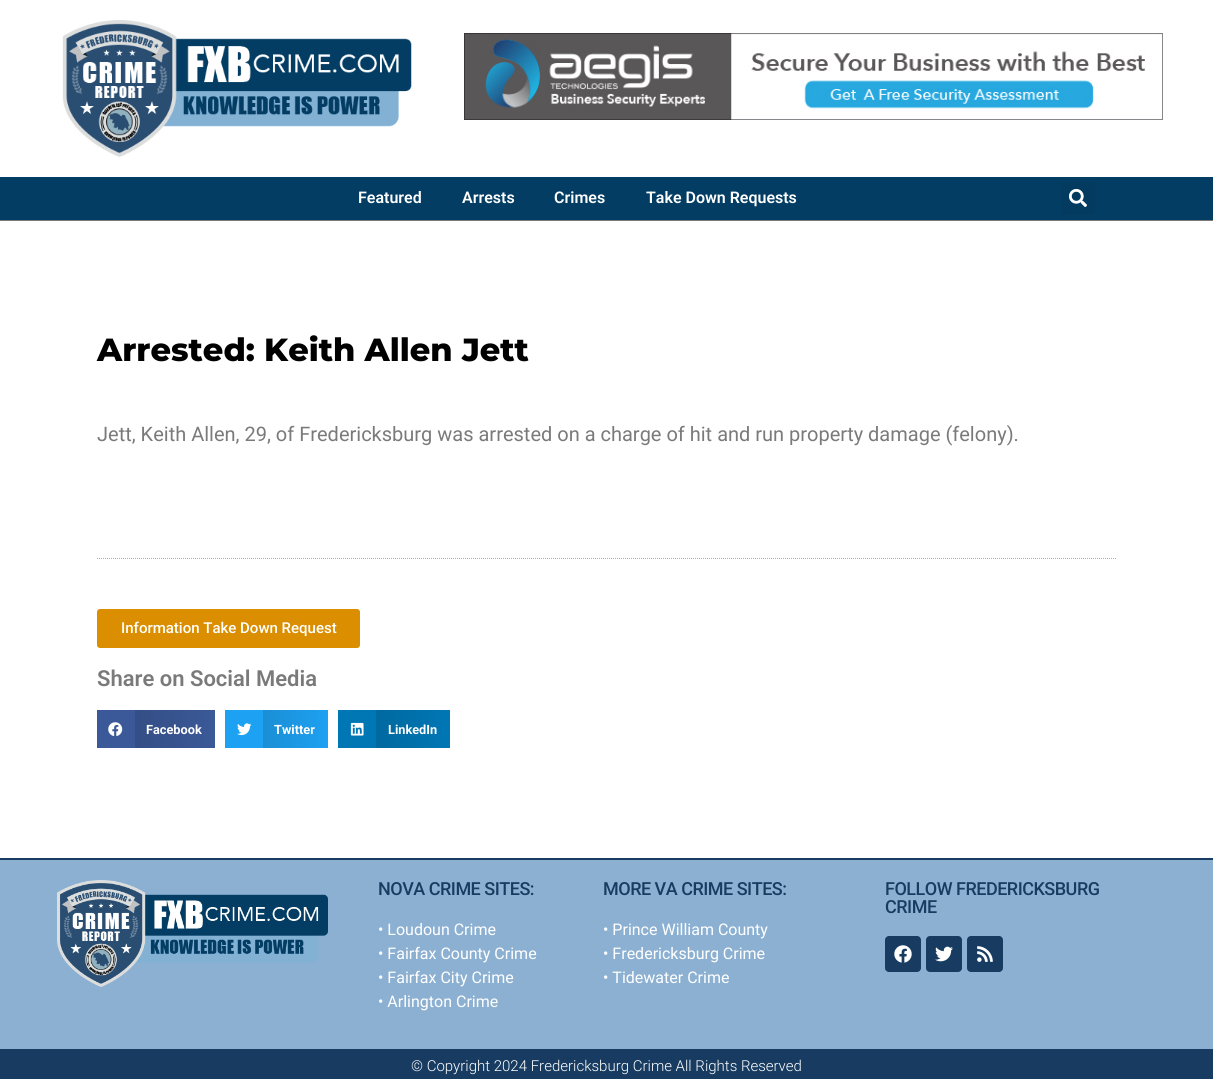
#include <cairo.h>
#include <math.h>
#include <stddef.h>


static void set_color(cairo_t *cr, unsigned color) {
    cairo_set_source_rgb(cr, (color >> 16) / 255.0, (color >> 8 & 255) / 255.0, (color & 255) / 255.0);
}

static void draw_text(cairo_t *cr, double x, double y, const char *s, const char *family, double size, int italic, int bold, unsigned color) {
    cairo_select_font_face(cr, family, italic ? CAIRO_FONT_SLANT_ITALIC : CAIRO_FONT_SLANT_NORMAL,
        bold ? CAIRO_FONT_WEIGHT_BOLD : CAIRO_FONT_WEIGHT_NORMAL);
    cairo_set_font_size(cr, size);
    set_color(cr, color);
    cairo_move_to(cr, x, y);
    cairo_show_text(cr, s);
}

static void draw_spaced(cairo_t *cr, double x, double y, const char *s, double letter, double word) {
    cairo_move_to(cr, x, y);
    while (*s) {
        char ch[5] = {0};
        int n = 0;
        do ch[n++] = *s++; while ((*s & 0xC0) == 0x80);
        cairo_show_text(cr, ch);
        cairo_rel_move_to(cr, letter + word * (*ch == ' '), 0);
    }
}

static void fill_rect(cairo_t *cr, double x, double y, double w, double h, unsigned color) {
    set_color(cr, color);
    cairo_rectangle(cr, x, y, w, h);
    cairo_fill(cr);
}

static void rounded_rect(cairo_t *cr, double x, double y, double w, double h, double r) {
    cairo_new_sub_path(cr);
    cairo_arc(cr, x + w - r, y + h - r, r, 0, M_PI / 2);
    cairo_arc(cr, x + r, y + h - r, r, M_PI / 2, M_PI);
    cairo_arc(cr, x + r, y + r, r, M_PI, 1.5 * M_PI);
    cairo_arc(cr, x + w - r, y + r, r, 1.5 * M_PI, 2 * M_PI);
    cairo_close_path(cr);
}

static void draw_image(cairo_t *cr, const char *path, double x, double y, double w, double h) {
    cairo_surface_t *image = cairo_image_surface_create_from_png(path);
    cairo_save(cr);
    cairo_set_source_surface(cr, image, x, y);
    cairo_rectangle(cr, x, y, w, h);
    cairo_fill(cr);
    cairo_restore(cr);
    cairo_surface_destroy(image);
}

int main(void) {
    cairo_surface_t *surface = cairo_image_surface_create(CAIRO_FORMAT_RGB24, 1213, 1079);
    cairo_t *cr = cairo_create(surface);
    cairo_font_options_t *options = cairo_font_options_create();
    cairo_font_options_set_hint_metrics(options, CAIRO_HINT_METRICS_OFF);
    cairo_font_options_set_hint_style(options, CAIRO_HINT_STYLE_NONE);
    cairo_set_font_options(cr, options);
    cairo_set_miter_limit(cr, 4);
    cairo_pattern_t *gradient;
    set_color(cr, 0xFFFFFF);
    cairo_paint(cr);
    draw_image(cr, "assets/img1.png", 62, 20, 350, 137);
    draw_image(cr, "assets/img2.png", 464, 33, 699, 87);
    fill_rect(cr, 0, 177, 1213, 43, 0x033D64);
    fill_rect(cr, 0, 220, 1213, 1, 0x7A7A7A);
    draw_text(cr, 358, 203, "Featured", "Roboto SemiBold", 16, 0, 0, 0xFFFFFF);
    draw_text(cr, 462, 203, "Arrests", "Roboto SemiBold", 16, 0, 0, 0xFFFFFF);
    draw_text(cr, 554, 203, "Crimes", "Roboto SemiBold", 16, 0, 0, 0xFFFFFF);
    draw_text(cr, 646, 203, "Take Down Requests", "Roboto SemiBold", 16, 0, 0, 0xFFFFFF);
    set_color(cr, 0x033A5F);
    rounded_rect(cr, 1062, 182, 33, 33, 3);
    cairo_fill(cr);
    draw_image(cr, "assets/img3.png", 1069, 189, 18, 18);
    draw_text(cr, 97, 361, "Arrested: Keith Allen Jett", "Montserrat ExtraBold", 32, 0, 0, 0x000000);
    draw_text(cr, 97, 441, "Jett, Keith Allen, 29, of Fredericksburg was arrested on a charge of hit and run property damage (felony).", "Roboto", 20, 0, 0, 0x7A7A7A);
    cairo_new_path(cr);
    cairo_move_to(cr, 97, 558.5);
    cairo_line_to(cr, 1117, 558.5);
    set_color(cr, 0xAFAFAF);
    cairo_set_line_width(cr, 1);
    cairo_set_dash(cr, (double[]){1, 1}, 2, 0);
    cairo_stroke(cr);
    set_color(cr, 0xDA8E00);
    rounded_rect(cr, 97, 609, 263, 39, 3);
    cairo_fill(cr);
    draw_text(cr, 121, 633, "Information Take Down Request", "Roboto Medium", 15, 0, 0, 0xFFFFFF);
    draw_text(cr, 97, 686, "Share on Social Media", "Roboto SemiBold", 22, 0, 0, 0x7A7A7A);
    fill_rect(cr, 97, 710, 38, 38, 0x3B5998);
    draw_image(cr, "assets/img4.png", 108, 722, 15, 14);
    gradient = cairo_pattern_create_linear(135, 729, 215, 729);
    cairo_pattern_add_color_stop_rgba(gradient, 0, 0.204, 0.306, 0.525, 1);
    cairo_pattern_add_color_stop_rgba(gradient, 1, 0.231, 0.349, 0.596, 1);
    cairo_set_source(cr, gradient);
    cairo_pattern_destroy(gradient);
    cairo_rectangle(cr, 135, 710, 80, 38);
    cairo_fill(cr);
    draw_text(cr, 146, 734, "Facebook", "Roboto", 12.75, 0, 1, 0xFFFFFF);
    fill_rect(cr, 225, 710, 38, 38, 0x1DA1F2);
    draw_image(cr, "assets/img5.png", 237, 723, 14, 13);
    gradient = cairo_pattern_create_linear(263, 729, 328, 729);
    cairo_pattern_add_color_stop_rgba(gradient, 0, 0.102, 0.557, 0.835, 1);
    cairo_pattern_add_color_stop_rgba(gradient, 1, 0.114, 0.631, 0.949, 1);
    cairo_set_source(cr, gradient);
    cairo_pattern_destroy(gradient);
    cairo_rectangle(cr, 263, 710, 65, 38);
    cairo_fill(cr);
    draw_text(cr, 274, 734, "Twitter", "Roboto", 12.75, 0, 1, 0xFFFFFF);
    fill_rect(cr, 338, 710, 38, 38, 0x0077B5);
    draw_image(cr, "assets/img6.png", 350, 722, 14, 14);
    gradient = cairo_pattern_create_linear(376, 729, 450, 729);
    cairo_pattern_add_color_stop_rgba(gradient, 0, 0, 0.412, 0.624, 1);
    cairo_pattern_add_color_stop_rgba(gradient, 1, 0, 0.467, 0.71, 1);
    cairo_set_source(cr, gradient);
    cairo_pattern_destroy(gradient);
    cairo_rectangle(cr, 376, 710, 74, 38);
    cairo_fill(cr);
    draw_text(cr, 388, 734, "LinkedIn", "Roboto", 12.75, 0, 1, 0xFFFFFF);
    fill_rect(cr, 0, 860, 1213, 189, 0x8CB0D1);
    fill_rect(cr, 0, 858, 1213, 2, 0x183C61);
    draw_image(cr, "assets/img7.png", 57, 880, 271, 107);
    cairo_select_font_face(cr, "Roboto Medium", CAIRO_FONT_SLANT_NORMAL, CAIRO_FONT_WEIGHT_NORMAL);
    cairo_set_font_size(cr, 18);
    draw_spaced(cr, 378, 895, "NOVA CRIME SITES:", -0.5, 0);
    draw_text(cr, 378, 935, "• Loudoun Crime", "Roboto", 16, 0, 0, 0xFFFFFF);
    draw_text(cr, 378, 959, "• Fairfax County Crime", "Roboto", 16, 0, 0, 0xFFFFFF);
    draw_text(cr, 378, 983, "• Fairfax City Crime", "Roboto", 16, 0, 0, 0xFFFFFF);
    draw_text(cr, 378, 1007, "• Arlington Crime", "Roboto", 16, 0, 0, 0xFFFFFF);
    cairo_select_font_face(cr, "Roboto Medium", CAIRO_FONT_SLANT_NORMAL, CAIRO_FONT_WEIGHT_NORMAL);
    cairo_set_font_size(cr, 18);
    set_color(cr, 0x183C61);
    draw_spaced(cr, 603, 895, "MORE VA CRIME SITES:", -0.5, 0);
    draw_text(cr, 603, 935, "• Prince William County", "Roboto", 16, 0, 0, 0xFFFFFF);
    draw_text(cr, 603, 959, "• Fredericksburg Crime", "Roboto", 16, 0, 0, 0xFFFFFF);
    draw_text(cr, 603, 983, "• Tidewater Crime", "Roboto", 16, 0, 0, 0xFFFFFF);
    cairo_select_font_face(cr, "Roboto Medium", CAIRO_FONT_SLANT_NORMAL, CAIRO_FONT_WEIGHT_NORMAL);
    cairo_set_font_size(cr, 18);
    set_color(cr, 0x183C61);
    draw_spaced(cr, 885, 895, "FOLLOW FREDERICKSBURG", -0.5, 0);
    draw_spaced(cr, 885, 913, "CRIME", -0.5, 0);
    rounded_rect(cr, 885, 936, 36, 36, 4);
    cairo_fill(cr);
    draw_image(cr, "assets/img8.png", 894, 945, 18, 18);
    rounded_rect(cr, 926, 936, 36, 36, 4);
    cairo_fill(cr);
    draw_image(cr, "assets/img9.png", 935, 946, 18, 16);
    rounded_rect(cr, 967, 936, 36, 36, 4);
    cairo_fill(cr);
    draw_image(cr, "assets/img10.png", 977, 946, 16, 16);
    fill_rect(cr, 0, 1049, 1213, 30, 0x183C61);
    draw_text(cr, 411, 1071, "© Copyright 2024 Fredericksburg Crime All Rights Reserved", "Roboto Light", 15, 0, 0, 0xFFFFFF);
    cairo_surface_write_to_png(surface, "output.png");
    cairo_font_options_destroy(options);
    cairo_destroy(cr);
    cairo_surface_destroy(surface);
    return 0;
}
